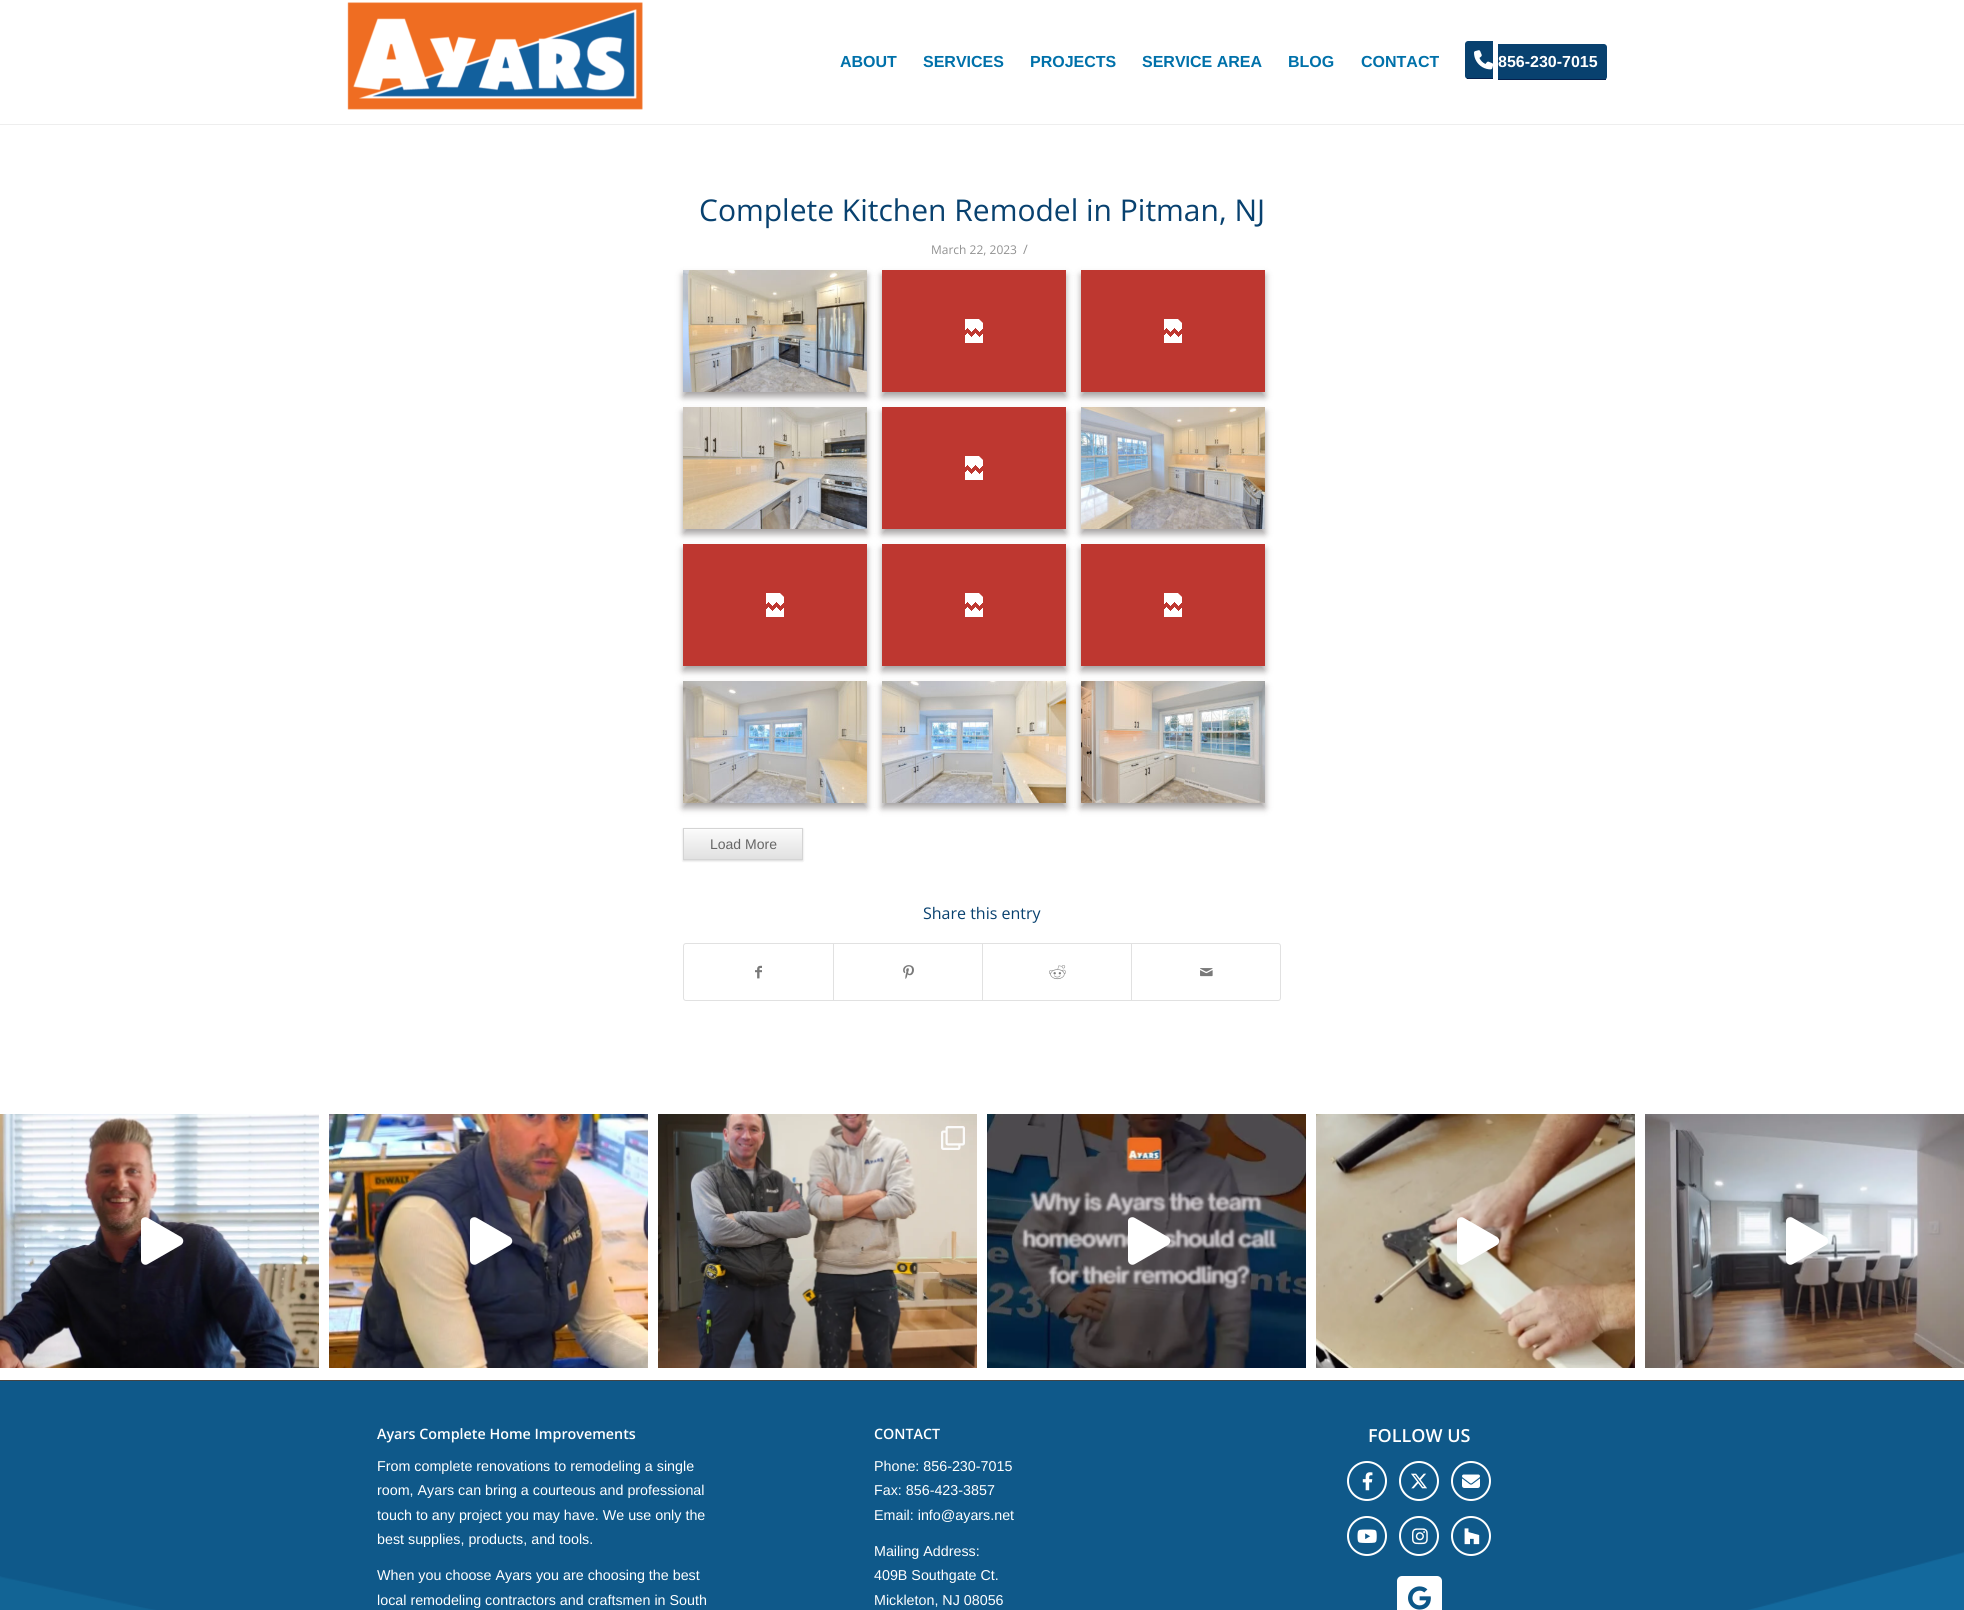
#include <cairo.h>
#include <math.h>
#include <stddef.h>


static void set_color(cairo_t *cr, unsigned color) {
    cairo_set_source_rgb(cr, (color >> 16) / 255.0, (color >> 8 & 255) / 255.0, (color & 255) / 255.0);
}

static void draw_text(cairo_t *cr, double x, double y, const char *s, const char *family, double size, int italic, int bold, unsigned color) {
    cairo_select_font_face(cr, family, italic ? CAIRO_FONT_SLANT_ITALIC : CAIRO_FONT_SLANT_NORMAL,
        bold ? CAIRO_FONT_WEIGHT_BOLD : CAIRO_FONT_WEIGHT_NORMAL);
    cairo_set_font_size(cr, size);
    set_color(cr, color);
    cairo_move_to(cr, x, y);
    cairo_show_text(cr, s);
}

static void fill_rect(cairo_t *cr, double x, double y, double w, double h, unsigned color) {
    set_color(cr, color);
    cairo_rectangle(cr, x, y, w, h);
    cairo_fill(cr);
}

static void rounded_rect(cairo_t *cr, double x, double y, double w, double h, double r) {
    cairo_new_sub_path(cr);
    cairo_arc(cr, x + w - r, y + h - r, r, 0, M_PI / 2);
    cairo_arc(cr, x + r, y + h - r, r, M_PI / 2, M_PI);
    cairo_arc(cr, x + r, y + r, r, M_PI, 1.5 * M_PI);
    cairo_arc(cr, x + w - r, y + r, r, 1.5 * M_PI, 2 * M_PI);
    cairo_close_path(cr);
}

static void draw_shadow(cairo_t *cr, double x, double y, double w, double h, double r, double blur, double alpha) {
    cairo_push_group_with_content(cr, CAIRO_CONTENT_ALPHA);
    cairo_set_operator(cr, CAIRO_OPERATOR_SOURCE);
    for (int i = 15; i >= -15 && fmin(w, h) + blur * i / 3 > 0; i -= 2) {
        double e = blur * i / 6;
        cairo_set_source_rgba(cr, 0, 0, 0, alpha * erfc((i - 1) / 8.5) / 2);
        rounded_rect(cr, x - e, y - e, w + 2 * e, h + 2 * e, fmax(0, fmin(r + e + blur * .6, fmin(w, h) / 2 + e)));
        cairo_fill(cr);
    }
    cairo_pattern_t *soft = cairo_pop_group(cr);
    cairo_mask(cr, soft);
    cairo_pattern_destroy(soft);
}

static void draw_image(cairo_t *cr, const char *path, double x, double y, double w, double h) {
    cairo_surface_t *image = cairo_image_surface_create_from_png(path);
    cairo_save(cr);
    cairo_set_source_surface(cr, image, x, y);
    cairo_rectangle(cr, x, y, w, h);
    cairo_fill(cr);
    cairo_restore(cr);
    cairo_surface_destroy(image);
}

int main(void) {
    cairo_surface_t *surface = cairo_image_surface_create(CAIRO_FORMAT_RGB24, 1964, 1610);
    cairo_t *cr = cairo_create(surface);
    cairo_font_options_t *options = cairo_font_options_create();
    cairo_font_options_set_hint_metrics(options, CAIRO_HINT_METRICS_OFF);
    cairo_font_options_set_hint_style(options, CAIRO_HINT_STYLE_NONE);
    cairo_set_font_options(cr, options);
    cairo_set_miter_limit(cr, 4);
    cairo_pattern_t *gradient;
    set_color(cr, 0xFFFFFF);
    cairo_paint(cr);
    fill_rect(cr, 0, 124, 1964, 1, 0xEEEEEE);
    draw_image(cr, "assets/img1.png", 347, 2, 296, 108);
    draw_text(cr, 840, 67, "ABOUT", "Liberation Sans", 16, 0, 1, 0x0071AA);
    draw_text(cr, 923, 67, "SERVICES", "Liberation Sans", 16, 0, 1, 0x0071AA);
    draw_text(cr, 1030, 67, "PROJECTS", "Liberation Sans", 16, 0, 1, 0x0071AA);
    draw_text(cr, 1142, 67, "SERVICE AREA", "Liberation Sans", 16, 0, 1, 0x0071AA);
    draw_text(cr, 1288, 67, "BLOG", "Liberation Sans", 16, 0, 1, 0x0071AA);
    draw_text(cr, 1361, 67, "CONTACT", "Liberation Sans", 16, 0, 1, 0x0071AA);
    set_color(cr, 0x08416F);
    cairo_new_path(cr);
    cairo_move_to(cr, 1468, 41);
    cairo_line_to(cr, 1493, 41);
    cairo_line_to(cr, 1493, 79);
    cairo_line_to(cr, 1468, 79);
    cairo_curve_to(cr, 1466.5, 79, 1465, 77.5, 1465, 76);
    cairo_line_to(cr, 1465, 44);
    cairo_curve_to(cr, 1465, 42.5, 1466.5, 41, 1468, 41);
    cairo_close_path(cr);
    cairo_fill(cr);
    fill_rect(cr, 1467, 78, 26, 1, 0x06204D);
    set_color(cr, 0x08416F);
    cairo_new_path(cr);
    cairo_move_to(cr, 1498, 44);
    cairo_line_to(cr, 1604, 44);
    cairo_curve_to(cr, 1605.5, 44, 1607, 45.5, 1607, 47);
    cairo_line_to(cr, 1607, 77);
    cairo_curve_to(cr, 1607, 78.5, 1605.5, 80, 1604, 80);
    cairo_line_to(cr, 1498, 80);
    cairo_close_path(cr);
    cairo_fill(cr);
    fill_rect(cr, 1498, 79, 108, 1, 0x06204D);
    draw_image(cr, "assets/img2.png", 1474, 50, 19, 20);
    draw_text(cr, 1498, 67, "856-230-7015", "Liberation Sans", 16, 0, 1, 0xFFFFFF);
    draw_text(cr, 699, 221, "Complete Kitchen Remodel in Pitman, NJ", "Open Sans", 30, 0, 0, 0x08416F);
    draw_text(cr, 931, 254, "March 22, 2023", "Open Sans", 12, 0, 0, 0x919191);
    draw_text(cr, 1023, 254, "/", "Open Sans", 13, 0, 0, 0x919191);
    set_color(cr, 0x221919);
    draw_shadow(cr, 683, 275, 184, 122, 0, 3.5, 0.4);
    draw_image(cr, "assets/img3.png", 683, 270, 184, 122);
    draw_shadow(cr, 882, 275, 184, 122, 0, 3.5, 0.4);
    fill_rect(cr, 882, 270, 184, 122, 0xBE3730);
    draw_image(cr, "assets/img4.png", 965, 319, 18, 24);
    set_color(cr, 0x221919);
    draw_shadow(cr, 1081, 275, 184, 122, 0, 3.5, 0.4);
    fill_rect(cr, 1081, 270, 184, 122, 0xBE3730);
    draw_image(cr, "assets/img4.png", 1164, 319, 18, 24);
    set_color(cr, 0x221919);
    draw_shadow(cr, 683, 412, 184, 122, 0, 3.5, 0.4);
    draw_image(cr, "assets/img5.png", 683, 407, 184, 122);
    draw_shadow(cr, 882, 412, 184, 122, 0, 3.5, 0.4);
    fill_rect(cr, 882, 407, 184, 122, 0xBE3730);
    draw_image(cr, "assets/img4.png", 965, 456, 18, 24);
    set_color(cr, 0x221919);
    draw_shadow(cr, 1081, 412, 184, 122, 0, 3.5, 0.4);
    draw_image(cr, "assets/img6.png", 1081, 407, 184, 122);
    draw_shadow(cr, 683, 549, 184, 122, 0, 3.5, 0.4);
    fill_rect(cr, 683, 544, 184, 122, 0xBE3730);
    draw_image(cr, "assets/img4.png", 766, 593, 18, 24);
    set_color(cr, 0x221919);
    draw_shadow(cr, 882, 549, 184, 122, 0, 3.5, 0.4);
    fill_rect(cr, 882, 544, 184, 122, 0xBE3730);
    draw_image(cr, "assets/img4.png", 965, 593, 18, 24);
    set_color(cr, 0x221919);
    draw_shadow(cr, 1081, 549, 184, 122, 0, 3.5, 0.4);
    fill_rect(cr, 1081, 544, 184, 122, 0xBE3730);
    draw_image(cr, "assets/img4.png", 1164, 593, 18, 24);
    set_color(cr, 0x221919);
    draw_shadow(cr, 683, 686, 184, 122, 0, 3.5, 0.4);
    draw_image(cr, "assets/img7.png", 683, 681, 184, 122);
    draw_shadow(cr, 882, 686, 184, 122, 0, 3.5, 0.4);
    draw_image(cr, "assets/img8.png", 882, 681, 184, 122);
    draw_shadow(cr, 1081, 686, 184, 122, 0, 3.5, 0.4);
    draw_image(cr, "assets/img9.png", 1081, 681, 184, 122);
    set_color(cr, 0x000000);
    draw_shadow(cr, 683, 829, 120, 32, 0, 1, 0.15);
    gradient = cairo_pattern_create_linear(743, 829, 743, 859);
    cairo_pattern_add_color_stop_rgba(gradient, 0, 0.984, 0.984, 0.984, 1);
    cairo_pattern_add_color_stop_rgba(gradient, 1, 0.882, 0.882, 0.882, 1);
    cairo_set_source(cr, gradient);
    cairo_pattern_destroy(gradient);
    cairo_rectangle(cr, 684, 830, 118, 29);
    cairo_fill(cr);
    fill_rect(cr, 684, 829, 118, 1, 0xFDFDFD);
    cairo_rectangle(cr, 683.5, 828.5, 119, 31);
    set_color(cr, 0xD4D4D4);
    cairo_set_line_width(cr, 1);
    cairo_stroke(cr);
    draw_text(cr, 710, 849, "Load More", "Liberation Sans", 14, 0, 0, 0x666666);
    draw_text(cr, 923, 919, "Share this entry", "Open Sans", 16, 0, 0, 0x08416F);
    rounded_rect(cr, 683.5, 943.5, 597, 57, 2.5);
    set_color(cr, 0xE1E1E1);
    cairo_stroke(cr);
    draw_image(cr, "assets/img10.png", 755, 965, 7, 14);
    fill_rect(cr, 833, 944, 1, 56, 0xE1E1E1);
    draw_image(cr, "assets/img11.png", 903, 965, 11, 14);
    fill_rect(cr, 982, 944, 1, 56, 0xE1E1E1);
    draw_image(cr, "assets/img12.png", 1049, 965, 17, 15);
    fill_rect(cr, 1131, 944, 1, 56, 0xE1E1E1);
    draw_image(cr, "assets/img13.png", 1200, 968, 13, 9);
    draw_image(cr, "assets/img14.png", 0, 1114, 319, 254);
    set_color(cr, 0xFFFFFF);
    cairo_new_path(cr);
    cairo_move_to(cr, 181, 1237);
    cairo_line_to(cr, 148, 1218);
    cairo_curve_to(cr, 145, 1216, 141, 1218, 141, 1221);
    cairo_line_to(cr, 141, 1260);
    cairo_curve_to(cr, 141, 1264, 145, 1266, 148, 1264);
    cairo_line_to(cr, 181, 1245);
    cairo_curve_to(cr, 184, 1243, 184, 1239, 181, 1237);
    cairo_close_path(cr);
    cairo_fill(cr);
    draw_image(cr, "assets/img15.png", 329, 1114, 319, 254);
    cairo_new_path(cr);
    cairo_move_to(cr, 510, 1237);
    cairo_line_to(cr, 477, 1218);
    cairo_curve_to(cr, 474, 1216, 470, 1218, 470, 1221);
    cairo_line_to(cr, 470, 1260);
    cairo_curve_to(cr, 470, 1264, 474, 1266, 477, 1264);
    cairo_line_to(cr, 510, 1245);
    cairo_curve_to(cr, 513, 1243, 513, 1239, 510, 1237);
    cairo_close_path(cr);
    cairo_fill(cr);
    draw_image(cr, "assets/img16.png", 658, 1114, 319, 254);
    draw_image(cr, "assets/img17.png", 941, 1126, 24, 24);
    draw_image(cr, "assets/img18.png", 987, 1114, 319, 254);
    cairo_new_path(cr);
    cairo_move_to(cr, 1168, 1237);
    cairo_line_to(cr, 1135, 1218);
    cairo_curve_to(cr, 1132, 1216, 1128, 1218, 1128, 1221);
    cairo_line_to(cr, 1128, 1260);
    cairo_curve_to(cr, 1128, 1264, 1132, 1266, 1135, 1264);
    cairo_line_to(cr, 1168, 1245);
    cairo_curve_to(cr, 1171, 1243, 1171, 1239, 1168, 1237);
    cairo_close_path(cr);
    cairo_fill(cr);
    draw_image(cr, "assets/img19.png", 1316, 1114, 319, 254);
    cairo_new_path(cr);
    cairo_move_to(cr, 1497, 1237);
    cairo_line_to(cr, 1464, 1218);
    cairo_curve_to(cr, 1461, 1216, 1457, 1218, 1457, 1221);
    cairo_line_to(cr, 1457, 1260);
    cairo_curve_to(cr, 1457, 1264, 1461, 1266, 1464, 1264);
    cairo_line_to(cr, 1497, 1245);
    cairo_curve_to(cr, 1500, 1243, 1500, 1239, 1497, 1237);
    cairo_close_path(cr);
    cairo_fill(cr);
    draw_image(cr, "assets/img20.png", 1645, 1114, 319, 254);
    cairo_new_path(cr);
    cairo_move_to(cr, 1826, 1237);
    cairo_line_to(cr, 1793, 1218);
    cairo_curve_to(cr, 1790, 1216, 1786, 1218, 1786, 1221);
    cairo_line_to(cr, 1786, 1260);
    cairo_curve_to(cr, 1786, 1264, 1790, 1266, 1793, 1264);
    cairo_line_to(cr, 1826, 1245);
    cairo_curve_to(cr, 1829, 1243, 1829, 1239, 1826, 1237);
    cairo_close_path(cr);
    cairo_fill(cr);
    draw_image(cr, "assets/img21.png", 0, 1381, 1964, 229);
    fill_rect(cr, 0, 1380, 1964, 1, 0x444444);
    draw_text(cr, 377, 1439, "Ayars Complete Home Improvements", "Open Sans SemiBold", 14.3, 0, 0, 0xFFFFFF);
    draw_text(cr, 377, 1471, "From complete renovations to remodeling a single", "Liberation Sans", 14.3, 0, 0, 0xFFFFFF);
    draw_text(cr, 377, 1495, "room, Ayars can bring a courteous and professional", "Liberation Sans", 14.3, 0, 0, 0xFFFFFF);
    draw_text(cr, 377, 1520, "touch to any project you may have. We use only the", "Liberation Sans", 14.3, 0, 0, 0xFFFFFF);
    draw_text(cr, 377, 1544, "best supplies, products, and tools.", "Liberation Sans", 14.3, 0, 0, 0xFFFFFF);
    draw_text(cr, 377, 1580, "When you choose Ayars you are choosing the best", "Liberation Sans", 14.3, 0, 0, 0xFFFFFF);
    draw_text(cr, 377, 1605, "local remodeling contractors and craftsmen in South", "Liberation Sans", 14.3, 0, 0, 0xFFFFFF);
    draw_text(cr, 874, 1439, "CONTACT", "Open Sans SemiBold", 14.3, 0, 0, 0xFFFFFF);
    draw_text(cr, 874, 1471, "Phone: 856-230-7015", "Liberation Sans", 14.3, 0, 0, 0xFFFFFF);
    draw_text(cr, 874, 1495, "Fax: 856-423-3857", "Liberation Sans", 14.3, 0, 0, 0xFFFFFF);
    draw_text(cr, 874, 1520, "Email: info@ayars.net", "Liberation Sans", 14.3, 0, 0, 0xFFFFFF);
    draw_text(cr, 874, 1556, "Mailing Address:", "Liberation Sans", 14.3, 0, 0, 0xFFFFFF);
    draw_text(cr, 874, 1580, "409B Southgate Ct.", "Liberation Sans", 14.3, 0, 0, 0xFFFFFF);
    draw_text(cr, 874, 1605, "Mickleton, NJ 08056", "Liberation Sans", 14.3, 0, 0, 0xFFFFFF);
    draw_text(cr, 1368, 1442, "FOLLOW US", "Open Sans SemiBold", 18, 0, 0, 0xFFFFFF);
    cairo_new_path(cr);
    cairo_arc(cr, 1367, 1481, 19, 0, 2 * M_PI);
    cairo_set_line_width(cr, 2);
    cairo_stroke(cr);
    draw_image(cr, "assets/img22.png", 1362, 1472, 11, 19);
    cairo_arc(cr, 1419, 1481, 19, 0, 2 * M_PI);
    cairo_stroke(cr);
    draw_image(cr, "assets/img23.png", 1411, 1473, 16, 16);
    cairo_arc(cr, 1471, 1481, 19, 0, 2 * M_PI);
    cairo_stroke(cr);
    draw_image(cr, "assets/img24.png", 1462, 1474, 18, 14);
    cairo_arc(cr, 1367, 1536, 19, 0, 2 * M_PI);
    cairo_stroke(cr);
    draw_image(cr, "assets/img25.png", 1357, 1529, 20, 14);
    cairo_arc(cr, 1419, 1536, 19, 0, 2 * M_PI);
    cairo_stroke(cr);
    draw_image(cr, "assets/img26.png", 1412, 1528, 16, 17);
    cairo_arc(cr, 1471, 1536, 19, 0, 2 * M_PI);
    cairo_stroke(cr);
    draw_image(cr, "assets/img27.png", 1464, 1528, 16, 17);
    rounded_rect(cr, 1397, 1576, 45, 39, 5);
    cairo_fill(cr);
    draw_image(cr, "assets/img28.png", 1408, 1586, 23, 24);
    cairo_surface_write_to_png(surface, "output.png");
    cairo_font_options_destroy(options);
    cairo_destroy(cr);
    cairo_surface_destroy(surface);
    return 0;
}
